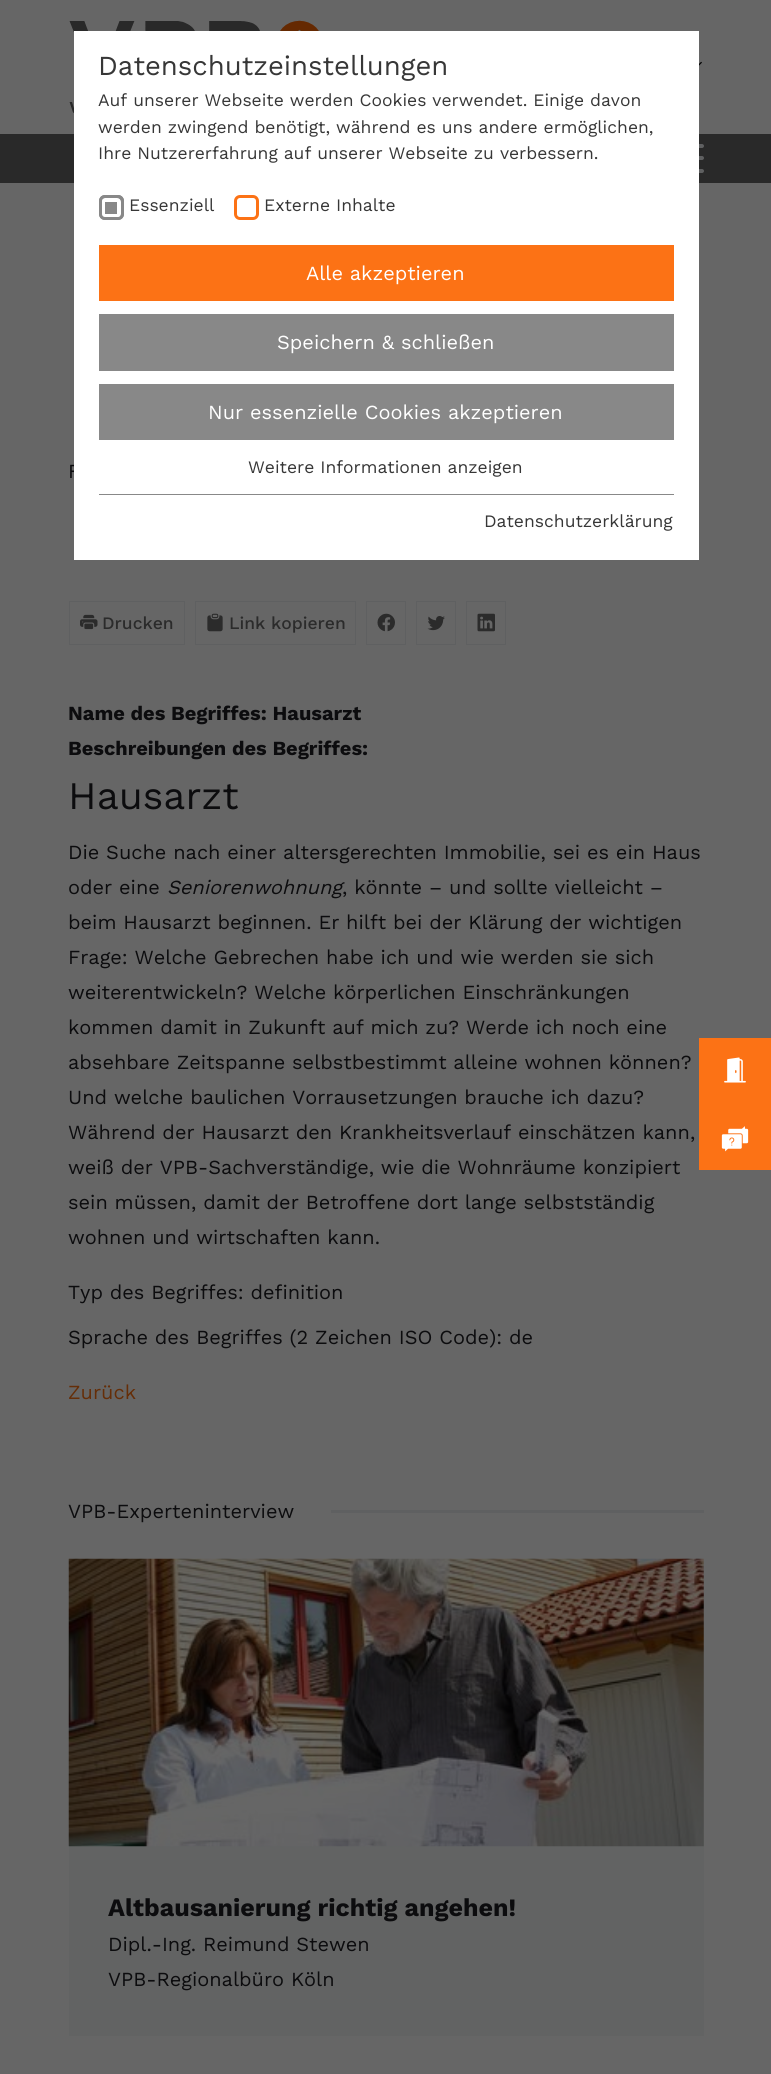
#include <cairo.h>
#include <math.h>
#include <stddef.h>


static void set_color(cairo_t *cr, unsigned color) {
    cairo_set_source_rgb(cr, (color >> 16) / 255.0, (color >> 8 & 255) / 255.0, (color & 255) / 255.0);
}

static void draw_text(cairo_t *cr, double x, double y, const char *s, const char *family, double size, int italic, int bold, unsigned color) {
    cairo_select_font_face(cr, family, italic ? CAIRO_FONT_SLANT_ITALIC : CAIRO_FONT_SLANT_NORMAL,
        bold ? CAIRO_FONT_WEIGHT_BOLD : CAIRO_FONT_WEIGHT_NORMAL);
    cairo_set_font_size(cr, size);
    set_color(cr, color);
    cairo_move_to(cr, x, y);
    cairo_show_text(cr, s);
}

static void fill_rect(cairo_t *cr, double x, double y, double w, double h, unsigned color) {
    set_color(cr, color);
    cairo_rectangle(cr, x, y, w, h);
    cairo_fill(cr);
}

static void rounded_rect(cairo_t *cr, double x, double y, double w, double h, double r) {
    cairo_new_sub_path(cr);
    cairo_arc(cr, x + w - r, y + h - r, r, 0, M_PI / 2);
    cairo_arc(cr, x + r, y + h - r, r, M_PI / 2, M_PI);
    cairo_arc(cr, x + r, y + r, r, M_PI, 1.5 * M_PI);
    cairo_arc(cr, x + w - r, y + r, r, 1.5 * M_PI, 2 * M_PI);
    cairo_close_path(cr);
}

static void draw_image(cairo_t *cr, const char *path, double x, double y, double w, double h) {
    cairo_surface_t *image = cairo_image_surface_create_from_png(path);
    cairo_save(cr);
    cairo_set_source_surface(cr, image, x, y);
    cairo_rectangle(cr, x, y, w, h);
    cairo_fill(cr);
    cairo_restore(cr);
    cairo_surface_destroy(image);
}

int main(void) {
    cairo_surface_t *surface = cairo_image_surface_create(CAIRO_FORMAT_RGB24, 771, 2074);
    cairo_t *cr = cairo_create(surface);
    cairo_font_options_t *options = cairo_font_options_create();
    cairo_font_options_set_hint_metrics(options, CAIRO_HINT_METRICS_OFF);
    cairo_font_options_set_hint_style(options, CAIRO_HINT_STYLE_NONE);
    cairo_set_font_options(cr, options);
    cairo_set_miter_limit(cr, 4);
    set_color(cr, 0x666666);
    cairo_paint(cr);
    draw_image(cr, "assets/img1.png", 69, 20, 250, 93);
    fill_rect(cr, 0, 134, 771, 49, 0x292929);
    set_color(cr, 0x5F6061);
    rounded_rect(cr, 666, 144, 38, 4, 2);
    cairo_fill(cr);
    rounded_rect(cr, 666, 156, 38, 4, 2);
    cairo_fill(cr);
    rounded_rect(cr, 666, 169, 38, 4, 2);
    cairo_fill(cr);
    draw_text(cr, 68, 478, "F", "Work Sans", 20, 0, 0, 0x0C0C0E);
    fill_rect(cr, 74, 31, 625, 529, 0xFFFFFF);
    draw_text(cr, 98, 75, "Datenschutzeinstellungen", "Work Sans", 27.5, 0, 0, 0x373737);
    draw_text(cr, 98, 106, "Auf unserer Webseite werden Cookies verwendet. Einige davon", "Work Sans", 17.5, 0, 0, 0x373737);
    draw_text(cr, 98, 133, "werden zwingend benötigt, während es uns andere ermöglichen,", "Work Sans", 17.5, 0, 0, 0x373737);
    draw_text(cr, 98, 159, "Ihre Nutzererfahrung auf unserer Webseite zu verbessern.", "Work Sans", 17.5, 0, 0, 0x373737);
    set_color(cr, 0x888888);
    rounded_rect(cr, 99, 195, 25, 25, 6);
    cairo_fill(cr);
    rounded_rect(cr, 103, 200, 16, 16, 2);
    set_color(cr, 0xFFFFFF);
    cairo_set_line_width(cr, 4);
    cairo_stroke(cr);
    rounded_rect(cr, 100.5, 196.5, 22, 22, 4.5);
    set_color(cr, 0x888888);
    cairo_set_line_width(cr, 3);
    cairo_stroke(cr);
    draw_text(cr, 129, 211, "Essenziell", "Work Sans", 17.5, 0, 0, 0x373737);
    rounded_rect(cr, 235.5, 196.5, 22, 22, 4.5);
    set_color(cr, 0xFC7215);
    cairo_stroke(cr);
    draw_text(cr, 264, 211, "Externe Inhalte", "Work Sans", 17.5, 0, 0, 0x373737);
    fill_rect(cr, 99, 245, 575, 56, 0xFC7215);
    draw_text(cr, 306, 280, "Alle akzeptieren", "Work Sans", 20, 0, 0, 0xFFFFFF);
    fill_rect(cr, 99, 314, 575, 57, 0x888888);
    draw_text(cr, 277, 349, "Speichern & schließen", "Work Sans", 20, 0, 0, 0xFFFFFF);
    fill_rect(cr, 99, 384, 575, 56, 0x888888);
    draw_text(cr, 208, 419, "Nur essenzielle Cookies akzeptieren", "Work Sans", 20, 0, 0, 0xFFFFFF);
    draw_text(cr, 248, 473, "Weitere Informationen anzeigen", "Work Sans", 17.5, 0, 0, 0x373737);
    fill_rect(cr, 99, 494, 575, 1, 0x888888);
    draw_text(cr, 484, 527, "Datenschutzerklärung", "Work Sans", 17.5, 0, 0, 0x373737);
    draw_image(cr, "assets/img2.png", 699, 61, 3, 5);
    cairo_rectangle(cr, 69.5, 601.5, 115, 43);
    set_color(cr, 0x5F6061);
    cairo_set_line_width(cr, 1);
    cairo_stroke(cr);
    draw_image(cr, "assets/img3.png", 80, 614, 18, 16);
    draw_text(cr, 102, 629, "Drucken", "Work Sans Medium", 17.5, 0, 0, 0x2B2B2B);
    cairo_rectangle(cr, 195.5, 601.5, 160, 43);
    set_color(cr, 0x5F6061);
    cairo_stroke(cr);
    draw_image(cr, "assets/img4.png", 207, 613, 16, 19);
    draw_text(cr, 229, 629, "Link kopieren", "Work Sans Medium", 17.5, 0, 0, 0x2B2B2B);
    cairo_rectangle(cr, 366.5, 601.5, 39, 43);
    set_color(cr, 0x5F6061);
    cairo_stroke(cr);
    draw_image(cr, "assets/img5.png", 377, 613, 18, 19);
    cairo_rectangle(cr, 416.5, 601.5, 39, 43);
    cairo_stroke(cr);
    draw_image(cr, "assets/img6.png", 427, 616, 18, 15);
    cairo_rectangle(cr, 466.5, 601.5, 39, 43);
    cairo_stroke(cr);
    draw_image(cr, "assets/img7.png", 477, 613, 18, 19);
    draw_text(cr, 68, 720, "Name des Begriffes: Hausarzt", "Work Sans", 20, 0, 1, 0x0C0C0E);
    draw_text(cr, 68, 755, "Beschreibungen des Begriffes:", "Work Sans", 20, 0, 1, 0x0C0C0E);
    draw_text(cr, 68, 809, "Hausarzt", "Work Sans", 39, 0, 0, 0x0C0C0E);
    draw_text(cr, 68, 859, "Die Suche nach einer altersgerechten Immobilie, sei es ein Haus", "Work Sans", 20, 0, 0, 0x0C0C0E);
    draw_text(cr, 68, 894, "oder eine", "Work Sans", 20, 0, 0, 0x0C0C0E);
    draw_text(cr, 167, 894, "Seniorenwohnung", "Work Sans", 20, 1, 0, 0x0C0C0E);
    draw_text(cr, 342, 894, ", könnte – und sollte vielleicht –", "Work Sans", 20, 0, 0, 0x0C0C0E);
    draw_text(cr, 68, 929, "beim Hausarzt beginnen. Er hilft bei der Klärung der wichtigen", "Work Sans", 20, 0, 0, 0x0C0C0E);
    draw_text(cr, 68, 964, "Frage: Welche Gebrechen habe ich und wie werden sie sich", "Work Sans", 20, 0, 0, 0x0C0C0E);
    draw_text(cr, 68, 999, "weiterentwickeln? Welche körperlichen Einschränkungen", "Work Sans", 20, 0, 0, 0x0C0C0E);
    draw_text(cr, 68, 1034, "kommen damit in Zukunft auf mich zu? Werde ich noch eine", "Work Sans", 20, 0, 0, 0x0C0C0E);
    draw_text(cr, 68, 1069, "absehbare Zeitspanne selbstbestimmt alleine wohnen können?", "Work Sans", 20, 0, 0, 0x0C0C0E);
    draw_text(cr, 68, 1104, "Und welche baulichen Vorrausetzungen brauche ich dazu?", "Work Sans", 20, 0, 0, 0x0C0C0E);
    draw_text(cr, 68, 1139, "Während der Hausarzt den Krankheitsverlauf einschätzen kann,", "Work Sans", 20, 0, 0, 0x0C0C0E);
    draw_text(cr, 68, 1174, "weiß der VPB-Sachverständige, wie die Wohnräume konzipiert", "Work Sans", 20, 0, 0, 0x0C0C0E);
    draw_text(cr, 68, 1209, "sein müssen, damit der Betroffene dort lange selbstständig", "Work Sans", 20, 0, 0, 0x0C0C0E);
    draw_text(cr, 68, 1244, "wohnen und wirtschaften kann.", "Work Sans", 20, 0, 0, 0x0C0C0E);
    draw_text(cr, 68, 1299, "Typ des Begriffes: definition", "Work Sans", 20, 0, 0, 0x0C0C0E);
    draw_text(cr, 68, 1344, "Sprache des Begriffes (2 Zeichen ISO Code): de", "Work Sans", 20, 0, 0, 0x0C0C0E);
    draw_text(cr, 68, 1399, "Zurück", "Work Sans", 20, 0, 0, 0x652E08);
    draw_text(cr, 68, 1518, "VPB-Experteninterview", "Work Sans", 20, 0, 0, 0x0C0C0E);
    fill_rect(cr, 331, 1510, 373, 3, 0x5F6061);
    fill_rect(cr, 69, 1559, 635, 477, 0x626363);
    draw_image(cr, "assets/img8.png", 68, 1558, 636, 289);
    draw_text(cr, 108, 1916, "Altbausanierung richtig angehen!", "Work Sans", 25, 0, 1, 0x0C0C0E);
    draw_text(cr, 108, 1951, "Dipl.-Ing. Reimund Stewen", "Work Sans", 20, 0, 0, 0x0C0C0E);
    draw_text(cr, 108, 1986, "VPB-Regionalbüro Köln", "Work Sans", 20, 0, 0, 0x0C0C0E);
    fill_rect(cr, 699, 1038, 72, 132, 0xFC7215);
    draw_image(cr, "assets/img9.png", 724, 1057, 22, 26);
    draw_image(cr, "assets/img10.png", 721, 1126, 28, 26);
    cairo_surface_write_to_png(surface, "output.png");
    cairo_font_options_destroy(options);
    cairo_destroy(cr);
    cairo_surface_destroy(surface);
    return 0;
}
